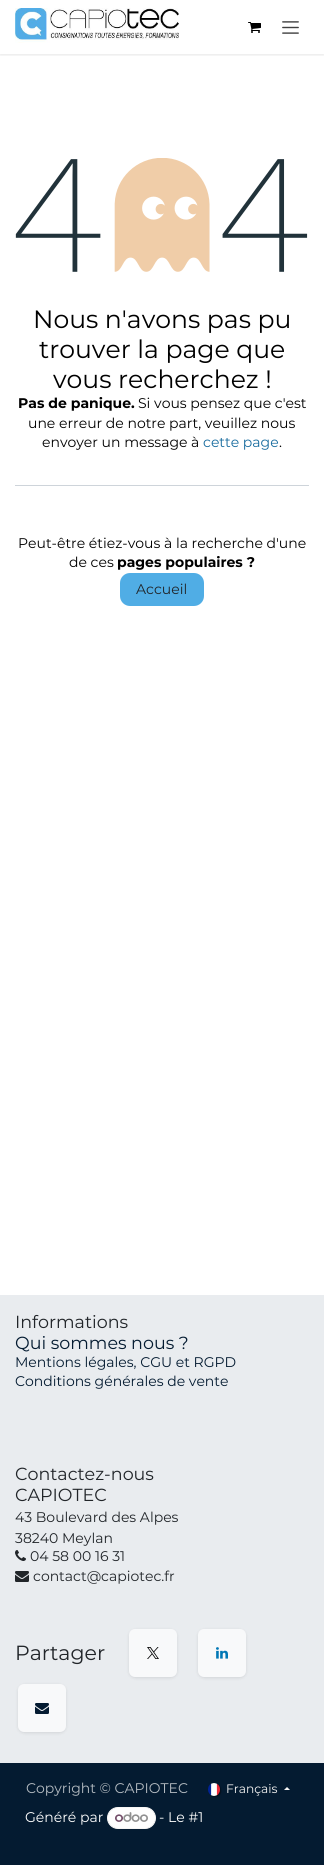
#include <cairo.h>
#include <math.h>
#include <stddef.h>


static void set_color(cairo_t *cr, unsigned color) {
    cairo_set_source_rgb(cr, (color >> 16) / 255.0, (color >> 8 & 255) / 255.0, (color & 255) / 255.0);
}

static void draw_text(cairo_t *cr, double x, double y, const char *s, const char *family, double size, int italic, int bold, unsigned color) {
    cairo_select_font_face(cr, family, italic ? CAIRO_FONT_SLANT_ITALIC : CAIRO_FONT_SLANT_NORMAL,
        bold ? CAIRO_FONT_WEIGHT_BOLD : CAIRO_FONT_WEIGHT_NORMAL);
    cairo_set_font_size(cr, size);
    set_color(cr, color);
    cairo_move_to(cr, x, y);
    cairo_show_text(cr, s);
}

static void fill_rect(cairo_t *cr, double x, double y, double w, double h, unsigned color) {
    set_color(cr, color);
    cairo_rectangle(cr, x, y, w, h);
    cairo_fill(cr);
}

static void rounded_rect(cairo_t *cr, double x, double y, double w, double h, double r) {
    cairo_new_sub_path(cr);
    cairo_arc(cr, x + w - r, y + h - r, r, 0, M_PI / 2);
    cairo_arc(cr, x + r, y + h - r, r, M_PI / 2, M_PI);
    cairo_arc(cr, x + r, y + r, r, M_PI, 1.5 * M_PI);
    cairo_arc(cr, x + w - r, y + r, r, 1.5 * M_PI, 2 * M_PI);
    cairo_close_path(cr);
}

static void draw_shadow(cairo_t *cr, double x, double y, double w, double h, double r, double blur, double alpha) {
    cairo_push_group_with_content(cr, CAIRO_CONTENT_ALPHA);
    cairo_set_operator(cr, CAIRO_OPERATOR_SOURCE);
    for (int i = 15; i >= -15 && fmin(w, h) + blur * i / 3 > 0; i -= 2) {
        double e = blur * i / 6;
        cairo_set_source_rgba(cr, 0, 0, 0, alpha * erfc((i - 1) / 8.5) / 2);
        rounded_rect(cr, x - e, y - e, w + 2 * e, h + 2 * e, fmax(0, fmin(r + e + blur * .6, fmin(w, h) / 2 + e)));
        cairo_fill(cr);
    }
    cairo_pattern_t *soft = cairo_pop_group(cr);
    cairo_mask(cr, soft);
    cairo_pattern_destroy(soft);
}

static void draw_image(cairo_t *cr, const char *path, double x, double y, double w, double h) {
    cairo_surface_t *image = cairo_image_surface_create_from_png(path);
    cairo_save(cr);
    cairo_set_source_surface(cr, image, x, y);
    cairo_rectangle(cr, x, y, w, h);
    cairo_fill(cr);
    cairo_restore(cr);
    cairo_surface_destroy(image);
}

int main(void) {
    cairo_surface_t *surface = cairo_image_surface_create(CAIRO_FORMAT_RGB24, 324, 1865);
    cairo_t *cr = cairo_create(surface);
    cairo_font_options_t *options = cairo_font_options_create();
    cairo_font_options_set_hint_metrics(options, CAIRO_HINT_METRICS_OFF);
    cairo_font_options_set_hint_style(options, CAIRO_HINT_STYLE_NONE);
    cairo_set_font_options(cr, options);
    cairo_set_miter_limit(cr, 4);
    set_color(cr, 0xFFFFFF);
    cairo_paint(cr);
    cairo_save(cr);
    cairo_rectangle(cr, 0, 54, 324, 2);
    cairo_clip(cr);
    set_color(cr, 0x000000);
    draw_shadow(cr, 0, 1, 324, 54, 0, 1.5, 0.1);
    cairo_restore(cr);
    draw_image(cr, "assets/img1.png", 15, 8, 164, 35);
    draw_image(cr, "assets/img2.png", 248, 22, 13, 11);
    draw_image(cr, "assets/img3.png", 282, 21, 17, 13);
    draw_image(cr, "assets/img4.png", 15, 158, 293, 114);
    draw_text(cr, 33, 328, "Nous n'avons pas pu", "Montserrat", 25.1, 0, 0, 0x000000);
    draw_text(cr, 39, 358, "trouver la page que", "Montserrat", 25.1, 0, 0, 0x000000);
    draw_text(cr, 53, 388, "vous recherchez !", "Montserrat", 25.1, 0, 0, 0x000000);
    draw_text(cr, 18, 408, "Pas de panique.", "Montserrat", 14, 0, 1, 0x000000);
    draw_text(cr, 138, 408, "Si vous pensez que c'est", "Montserrat", 14, 0, 0, 0x000000);
    draw_text(cr, 28, 428, "une erreur de notre part, veuillez nous", "Montserrat", 14, 0, 0, 0x000000);
    draw_text(cr, 42, 447, "envoyer un message à", "Montserrat", 14, 0, 0, 0x000000);
    draw_text(cr, 203, 447, "cette page", "Montserrat", 14, 0, 0, 0x176B9E);
    draw_text(cr, 279, 447, ".", "Montserrat", 14, 0, 0, 0x000000);
    fill_rect(cr, 15, 485, 294, 1, 0xCED4DA);
    draw_text(cr, 18, 548, "Peut-être étiez-vous à la recherche d'une", "Montserrat", 14, 0, 0, 0x000000);
    draw_text(cr, 69, 567, "de ces", "Montserrat", 14, 0, 0, 0x000000);
    draw_text(cr, 117, 567, "pages populaires ?", "Montserrat", 14, 0, 1, 0x000000);
    set_color(cr, 0x50ADE5);
    rounded_rect(cr, 120, 573, 84, 33, 10);
    cairo_fill(cr);
    draw_text(cr, 136, 594, "Accueil", "Montserrat", 14, 0, 0, 0x212529);
    fill_rect(cr, 0, 1763, 324, 102, 0x041B31);
    fill_rect(cr, 0, 1295, 324, 468, 0xE9ECEF);
    draw_text(cr, 15, 1328, "Informations", "Montserrat", 17.5, 0, 0, 0x212529);
    draw_text(cr, 15, 1349, "Qui sommes nous ?", "Montserrat", 17.5, 0, 0, 0x041B31);
    draw_text(cr, 15, 1367, "Mentions légales, CGU et RGPD", "Montserrat", 14, 0, 0, 0x041B31);
    draw_text(cr, 15, 1386, "Conditions générales de vente", "Montserrat", 14, 0, 0, 0x041B31);
    draw_text(cr, 15, 1480, "Contactez-nous", "Montserrat", 17.5, 0, 0, 0x212529);
    draw_text(cr, 15, 1501, "CAPIOTEC", "Montserrat", 17.5, 0, 0, 0x212529);
    draw_text(cr, 15, 1522, "43 Boulevard des Alpes", "Montserrat", 14, 0, 0, 0x212529);
    draw_text(cr, 15, 1543, "38240 Meylan", "Montserrat", 14, 0, 0, 0x212529);
    draw_image(cr, "assets/img5.png", 15, 1550, 11, 11);
    draw_text(cr, 30, 1561, "04 58 00 16 31", "Montserrat", 14, 0, 0, 0x212529);
    draw_image(cr, "assets/img6.png", 15, 1571, 14, 11);
    draw_text(cr, 33, 1581, "contact@capiotec.fr", "Montserrat", 14, 0, 0, 0x212529);
    draw_text(cr, 15, 1660, "Partager", "Montserrat", 20.5, 0, 0, 0x212529);
    set_color(cr, 0x000000);
    draw_shadow(cr, 129, 1630, 48, 48, 6, 1.5, 0.1);
    set_color(cr, 0xF8F9FA);
    rounded_rect(cr, 129, 1629, 48, 48, 6);
    cairo_fill(cr);
    draw_image(cr, "assets/img7.png", 147, 1647, 12, 12);
    set_color(cr, 0x000000);
    draw_shadow(cr, 198, 1630, 48, 48, 6, 1.5, 0.1);
    set_color(cr, 0xF8F9FA);
    rounded_rect(cr, 198, 1629, 48, 48, 6);
    cairo_fill(cr);
    draw_image(cr, "assets/img8.png", 216, 1647, 12, 12);
    set_color(cr, 0x000000);
    draw_shadow(cr, 18, 1685, 48, 48, 6, 1.5, 0.1);
    set_color(cr, 0xF8F9FA);
    rounded_rect(cr, 18, 1684, 48, 48, 6);
    cairo_fill(cr);
    draw_image(cr, "assets/img9.png", 35, 1703, 14, 11);
    draw_text(cr, 26, 1793, "Copyright © CAPIOTEC", "Montserrat", 14, 0, 0, 0xB4BBC1);
    set_color(cr, 0x000000);
    draw_shadow(cr, 209, 1784, 12, 13, 6, 0.5, 0.43);
    draw_image(cr, "assets/img10.png", 208, 1783, 12, 13);
    draw_text(cr, 226, 1793, "Français", "Montserrat", 12.25, 0, 0, 0xF6F5F4);
    cairo_new_path(cr);
    cairo_move_to(cr, 290, 1790);
    cairo_line_to(cr, 284, 1790);
    cairo_line_to(cr, 287, 1787);
    cairo_close_path(cr);
    cairo_fill(cr);
    draw_text(cr, 25, 1822, "Généré par", "Montserrat", 14, 0, 0, 0xFFFFFF);
    set_color(cr, 0xFEFEFE);
    rounded_rect(cr, 107.5, 1807.5, 48, 21, 10.5);
    cairo_fill_preserve(cr);
    set_color(cr, 0xF6F5F4);
    cairo_set_line_width(cr, 1);
    cairo_stroke(cr);
    draw_image(cr, "assets/img11.png", 115, 1812, 33, 10);
    draw_text(cr, 159, 1822, "- Le #1", "Montserrat", 14, 0, 0, 0xFFFFFF);
    cairo_surface_write_to_png(surface, "output.png");
    cairo_font_options_destroy(options);
    cairo_destroy(cr);
    cairo_surface_destroy(surface);
    return 0;
}
